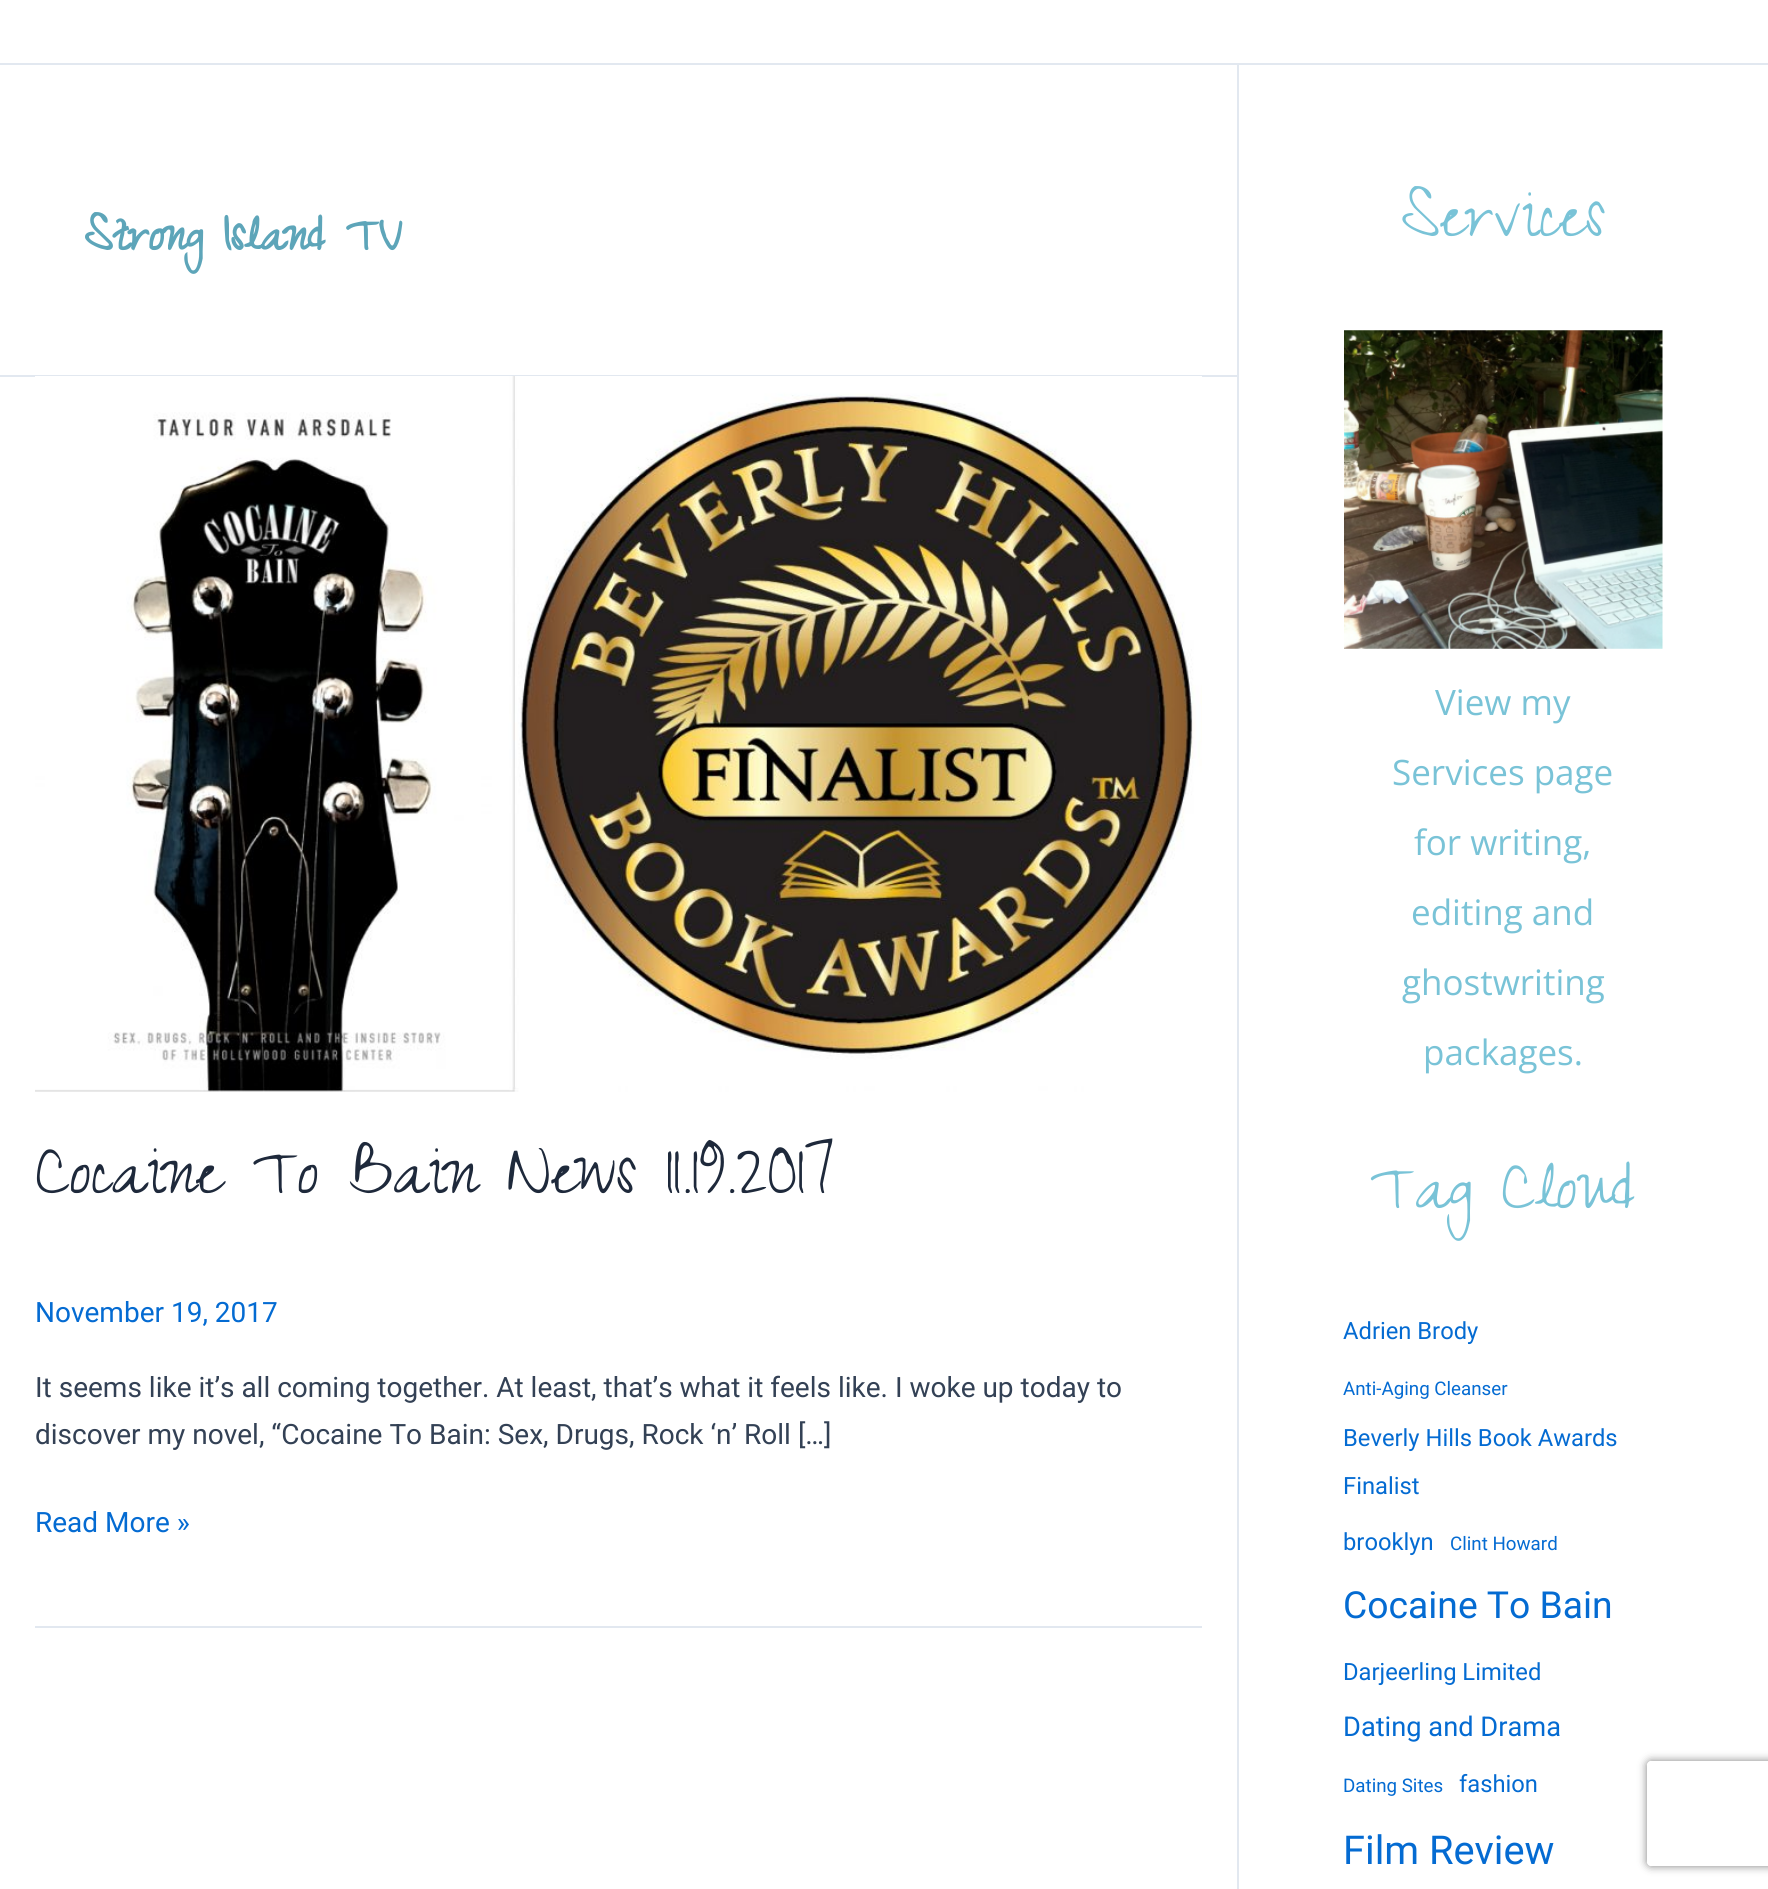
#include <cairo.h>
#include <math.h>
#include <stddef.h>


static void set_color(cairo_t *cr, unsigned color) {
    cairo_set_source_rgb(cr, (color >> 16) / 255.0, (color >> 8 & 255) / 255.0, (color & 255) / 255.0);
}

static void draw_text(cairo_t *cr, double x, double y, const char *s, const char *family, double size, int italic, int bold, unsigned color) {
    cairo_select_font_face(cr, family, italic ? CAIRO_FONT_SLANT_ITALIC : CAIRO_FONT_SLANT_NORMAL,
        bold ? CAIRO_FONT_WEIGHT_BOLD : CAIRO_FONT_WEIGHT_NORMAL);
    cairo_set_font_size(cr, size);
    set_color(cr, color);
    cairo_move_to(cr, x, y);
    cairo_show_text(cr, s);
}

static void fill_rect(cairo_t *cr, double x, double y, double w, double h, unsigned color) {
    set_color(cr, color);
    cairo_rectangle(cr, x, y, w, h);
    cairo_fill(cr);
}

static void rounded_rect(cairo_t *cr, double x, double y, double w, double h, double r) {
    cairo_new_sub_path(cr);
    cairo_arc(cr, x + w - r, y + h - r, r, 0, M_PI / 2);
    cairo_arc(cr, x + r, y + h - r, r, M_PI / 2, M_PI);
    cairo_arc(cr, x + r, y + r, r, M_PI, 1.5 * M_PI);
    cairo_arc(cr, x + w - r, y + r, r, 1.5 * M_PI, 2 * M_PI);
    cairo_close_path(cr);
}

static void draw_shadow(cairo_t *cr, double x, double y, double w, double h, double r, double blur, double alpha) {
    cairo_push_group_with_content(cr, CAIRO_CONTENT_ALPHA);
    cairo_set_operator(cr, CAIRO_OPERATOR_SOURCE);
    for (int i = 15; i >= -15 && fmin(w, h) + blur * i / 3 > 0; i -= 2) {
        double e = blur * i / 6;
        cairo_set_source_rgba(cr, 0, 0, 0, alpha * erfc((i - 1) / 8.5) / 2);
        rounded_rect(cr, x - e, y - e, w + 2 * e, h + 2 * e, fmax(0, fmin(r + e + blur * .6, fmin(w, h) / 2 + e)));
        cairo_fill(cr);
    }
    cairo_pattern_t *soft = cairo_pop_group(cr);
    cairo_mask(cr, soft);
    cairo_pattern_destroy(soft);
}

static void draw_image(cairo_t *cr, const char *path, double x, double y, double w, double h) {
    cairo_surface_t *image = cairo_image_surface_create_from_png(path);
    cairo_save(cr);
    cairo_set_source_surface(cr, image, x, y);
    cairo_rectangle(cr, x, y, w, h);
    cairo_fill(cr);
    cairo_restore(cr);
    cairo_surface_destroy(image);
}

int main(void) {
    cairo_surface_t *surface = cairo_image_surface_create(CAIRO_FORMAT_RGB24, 1768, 1889);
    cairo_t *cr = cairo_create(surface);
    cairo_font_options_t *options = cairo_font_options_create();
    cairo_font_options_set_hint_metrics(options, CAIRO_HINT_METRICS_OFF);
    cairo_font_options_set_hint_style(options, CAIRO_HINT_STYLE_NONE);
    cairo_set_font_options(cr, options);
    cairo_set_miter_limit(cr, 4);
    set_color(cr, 0xFFFFFF);
    cairo_paint(cr);
    fill_rect(cr, 0, 63, 1768, 2, 0xE2E8F0);
    fill_rect(cr, 1237, 65, 2, 1824, 0xE2E8F0);
    fill_rect(cr, 0, 375, 1237, 2, 0xE2E8F0);
    draw_text(cr, 84, 250, "Strong Island TV", "Zeyada", 56, 0, 1, 0x5DA5B9);
    fill_rect(cr, 35, 1626, 1167, 2, 0xE2E8F0);
    draw_image(cr, "assets/img1.png", 35, 376, 1167, 716);
    draw_text(cr, 35, 1193, "Cocaine To Bain News 11.19.2017", "Zeyada", 78.75, 0, 0, 0x1E293B);
    draw_text(cr, 35, 1322, "November 19, 2017", "Roboto", 28, 0, 0, 0x046BD2);
    draw_text(cr, 35, 1397, "It seems like it’s all coming together. At least, that’s what it feels like. I woke up today to", "Roboto", 28, 0, 0, 0x334155);
    draw_text(cr, 35, 1444, "discover my novel, “Cocaine To Bain: Sex, Drugs, Rock ‘n’ Roll […]", "Roboto", 28, 0, 0, 0x334155);
    draw_text(cr, 35, 1532, "Read More »", "Roboto", 28, 0, 0, 0x046BD2);
    draw_text(cr, 1401, 236, "Services", "Zeyada", 77, 0, 0, 0x79C3D7);
    draw_image(cr, "assets/img2.png", 1344, 330, 319, 319);
    draw_text(cr, 1435, 715, "View my", "Open Sans", 35, 0, 0, 0x79C3D7);
    draw_text(cr, 1392, 785, "Services page", "Open Sans", 35, 0, 0, 0x79C3D7);
    draw_text(cr, 1414, 855, "for writing,", "Open Sans", 35, 0, 0, 0x79C3D7);
    draw_text(cr, 1411, 925, "editing and", "Open Sans", 35, 0, 0, 0x79C3D7);
    draw_text(cr, 1402, 995, "ghostwriting", "Open Sans", 35, 0, 0, 0x79C3D7);
    draw_text(cr, 1423, 1065, "packages.", "Open Sans", 35, 0, 0, 0x79C3D7);
    draw_text(cr, 1370, 1208, "Tag Cloud", "Zeyada", 77, 0, 0, 0x79C3D7);
    draw_text(cr, 1343, 1339, "Adrien Brody", "Roboto", 23.75, 0, 0, 0x046BD2);
    draw_text(cr, 1343, 1395, "Anti-Aging Cleanser", "Roboto", 18.75, 0, 0, 0x046BD2);
    draw_text(cr, 1343, 1446, "Beverly Hills Book Awards", "Roboto", 23.75, 0, 0, 0x046BD2);
    draw_text(cr, 1343, 1494, "Finalist", "Roboto", 23.75, 0, 0, 0x046BD2);
    draw_text(cr, 1343, 1550, "brooklyn", "Roboto", 23.75, 0, 0, 0x046BD2);
    draw_text(cr, 1450, 1550, "Clint Howard", "Roboto", 18.75, 0, 0, 0x046BD2);
    draw_text(cr, 1343, 1618, "Cocaine To Bain", "Roboto", 37.25, 0, 0, 0x046BD2);
    draw_text(cr, 1343, 1680, "Darjeerling Limited", "Roboto", 23.75, 0, 0, 0x046BD2);
    draw_text(cr, 1343, 1736, "Dating and Drama", "Roboto", 27.25, 0, 0, 0x046BD2);
    draw_text(cr, 1343, 1792, "Dating Sites", "Roboto", 18.75, 0, 0, 0x046BD2);
    draw_text(cr, 1459, 1792, "fashion", "Roboto", 23.75, 0, 0, 0x046BD2);
    draw_text(cr, 1343, 1864, "Film Review", "Roboto", 39.75, 0, 0, 0x046BD2);
    cairo_save(cr);
    cairo_set_fill_rule(cr, CAIRO_FILL_RULE_EVEN_ODD);
    cairo_new_path(cr);
    cairo_move_to(cr, 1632, 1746);
    cairo_line_to(cr, 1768, 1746);
    cairo_line_to(cr, 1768, 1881);
    cairo_line_to(cr, 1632, 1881);
    cairo_close_path(cr);
    cairo_move_to(cr, 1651, 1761);
    cairo_line_to(cr, 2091, 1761);
    cairo_curve_to(cr, 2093, 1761, 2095, 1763, 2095, 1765);
    cairo_line_to(cr, 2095, 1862);
    cairo_curve_to(cr, 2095, 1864, 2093, 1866, 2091, 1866);
    cairo_line_to(cr, 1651, 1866);
    cairo_curve_to(cr, 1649, 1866, 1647, 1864, 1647, 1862);
    cairo_line_to(cr, 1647, 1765);
    cairo_curve_to(cr, 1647, 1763, 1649, 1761, 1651, 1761);
    cairo_close_path(cr);
    cairo_clip(cr);
    set_color(cr, 0x808080);
    draw_shadow(cr, 1647, 1761, 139, 105, 4, 4.5, 1);
    cairo_restore(cr);
    cairo_surface_write_to_png(surface, "output.png");
    cairo_font_options_destroy(options);
    cairo_destroy(cr);
    cairo_surface_destroy(surface);
    return 0;
}
